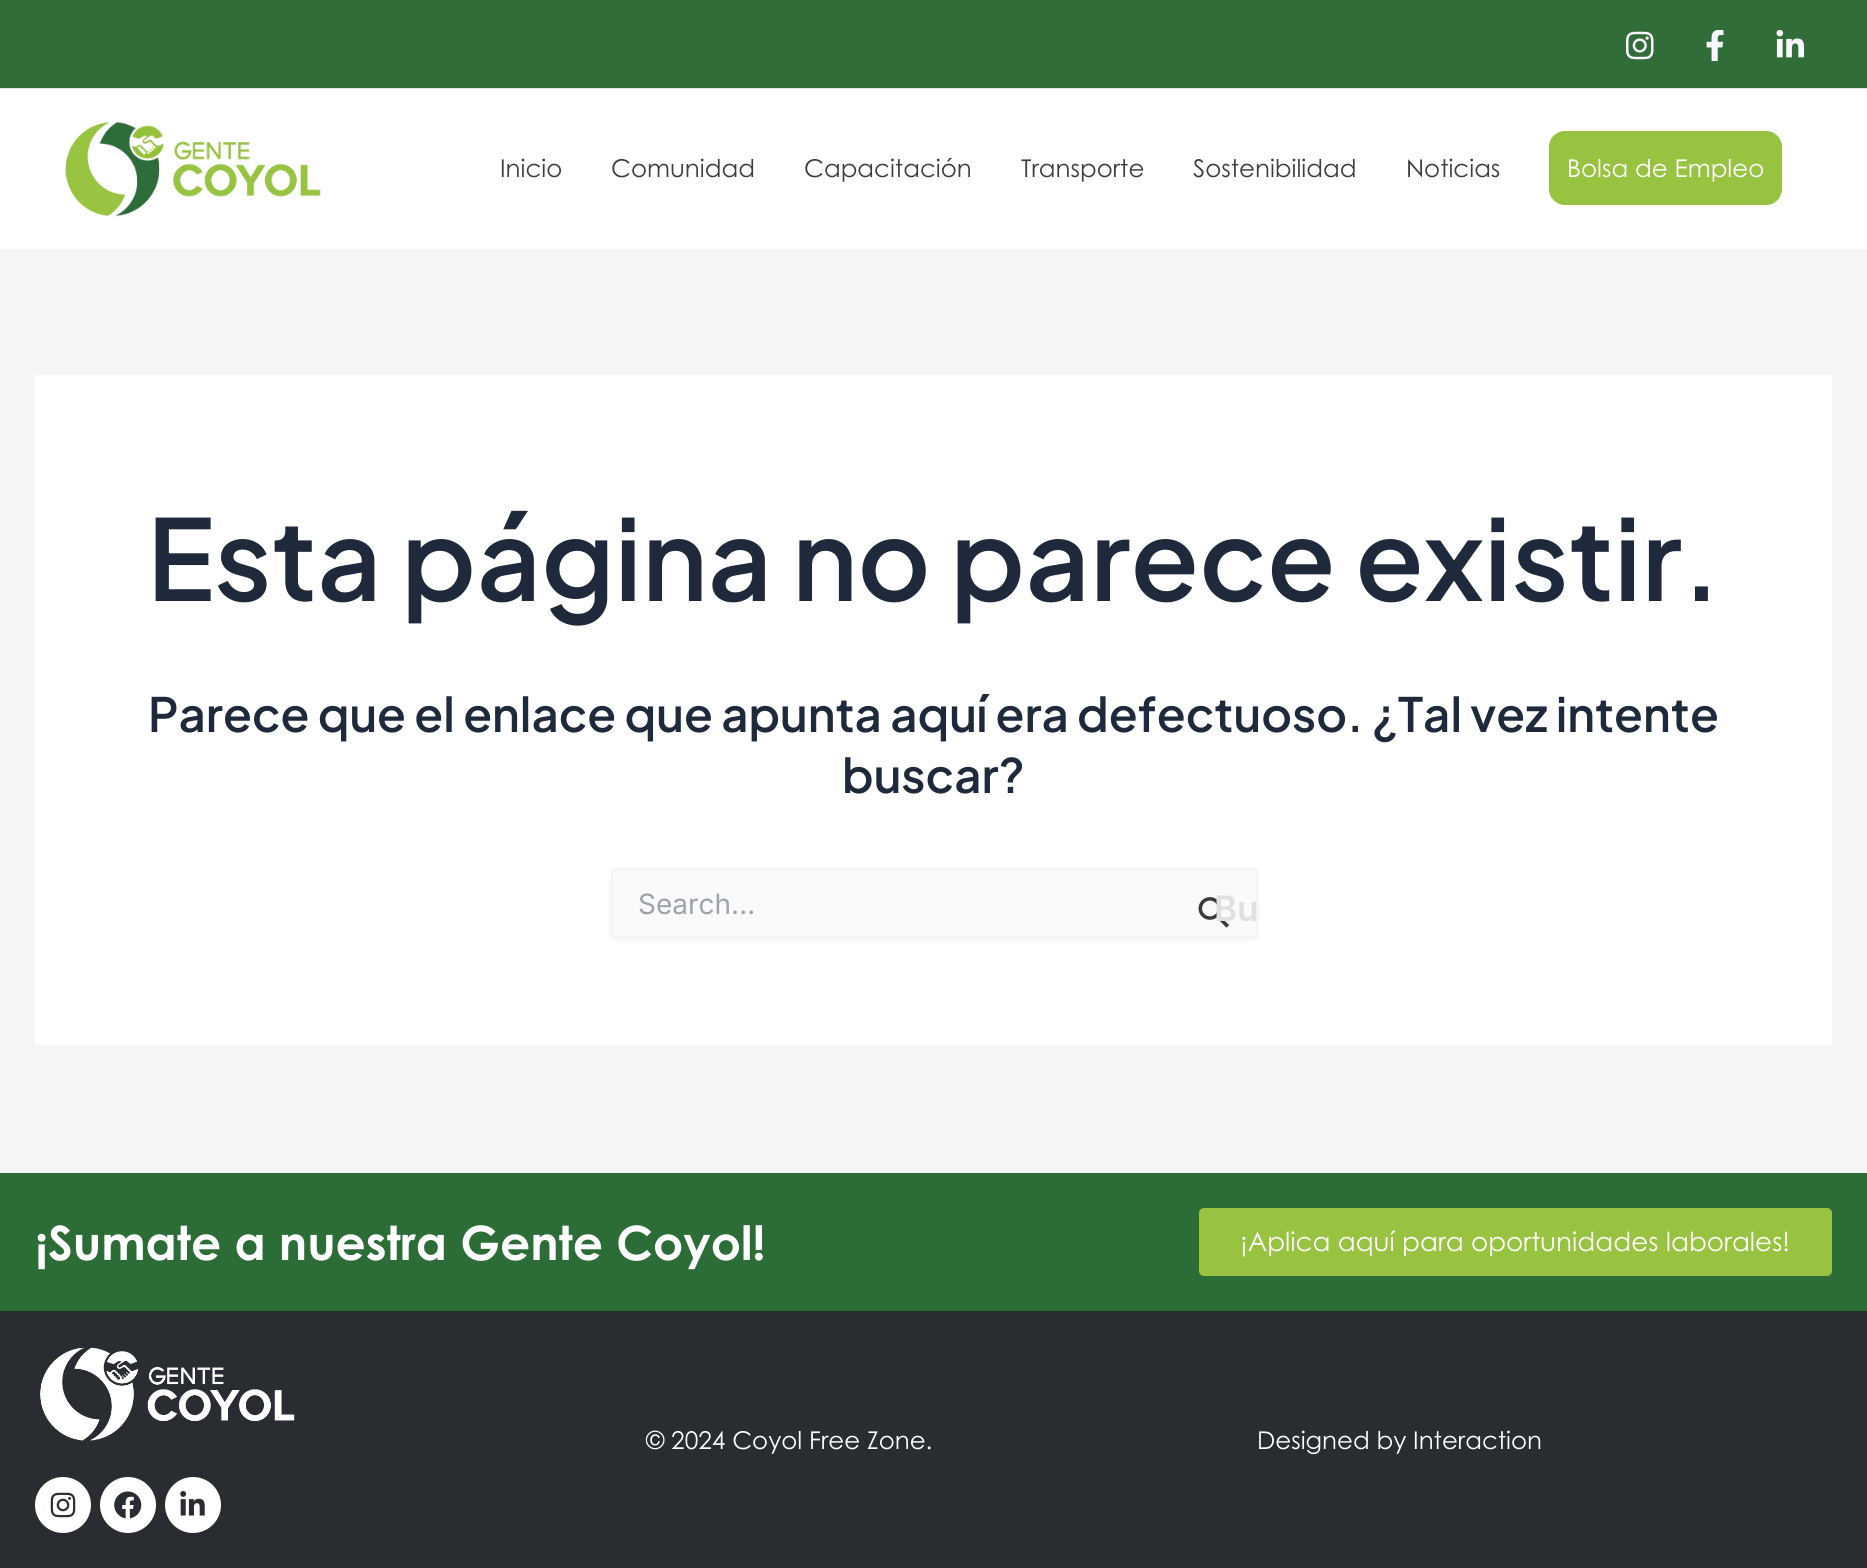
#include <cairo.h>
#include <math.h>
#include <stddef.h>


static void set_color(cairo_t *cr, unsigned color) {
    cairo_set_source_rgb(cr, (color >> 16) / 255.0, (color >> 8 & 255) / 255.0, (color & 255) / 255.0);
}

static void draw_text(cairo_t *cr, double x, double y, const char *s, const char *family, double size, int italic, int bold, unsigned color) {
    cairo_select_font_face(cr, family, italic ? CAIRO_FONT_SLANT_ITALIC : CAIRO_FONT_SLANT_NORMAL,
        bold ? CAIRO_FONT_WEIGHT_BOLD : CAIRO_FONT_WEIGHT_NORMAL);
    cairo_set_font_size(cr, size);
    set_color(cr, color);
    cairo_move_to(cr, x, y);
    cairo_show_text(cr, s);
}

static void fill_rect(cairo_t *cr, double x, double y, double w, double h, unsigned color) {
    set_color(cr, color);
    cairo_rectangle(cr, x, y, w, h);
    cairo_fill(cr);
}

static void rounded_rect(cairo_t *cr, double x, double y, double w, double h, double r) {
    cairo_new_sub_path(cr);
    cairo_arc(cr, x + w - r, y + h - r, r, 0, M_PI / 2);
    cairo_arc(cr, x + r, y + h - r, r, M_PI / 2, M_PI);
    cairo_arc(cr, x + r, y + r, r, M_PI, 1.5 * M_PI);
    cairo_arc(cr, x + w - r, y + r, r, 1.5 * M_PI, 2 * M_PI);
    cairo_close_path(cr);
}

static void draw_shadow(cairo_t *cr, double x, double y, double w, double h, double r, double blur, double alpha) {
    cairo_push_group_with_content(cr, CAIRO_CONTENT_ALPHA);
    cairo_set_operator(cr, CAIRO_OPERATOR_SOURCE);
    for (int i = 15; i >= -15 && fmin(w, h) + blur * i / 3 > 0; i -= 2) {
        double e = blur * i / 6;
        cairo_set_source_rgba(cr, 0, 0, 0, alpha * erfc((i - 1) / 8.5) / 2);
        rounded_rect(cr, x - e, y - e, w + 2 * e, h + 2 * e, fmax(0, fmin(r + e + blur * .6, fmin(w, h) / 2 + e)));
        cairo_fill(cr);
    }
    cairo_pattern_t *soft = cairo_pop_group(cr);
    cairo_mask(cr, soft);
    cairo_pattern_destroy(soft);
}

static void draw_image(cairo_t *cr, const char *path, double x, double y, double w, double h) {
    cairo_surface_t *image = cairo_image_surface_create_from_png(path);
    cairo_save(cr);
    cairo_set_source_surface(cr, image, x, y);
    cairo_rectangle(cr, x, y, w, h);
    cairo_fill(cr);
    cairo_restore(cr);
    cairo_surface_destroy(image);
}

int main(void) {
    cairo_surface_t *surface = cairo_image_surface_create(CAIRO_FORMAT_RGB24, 1867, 1568);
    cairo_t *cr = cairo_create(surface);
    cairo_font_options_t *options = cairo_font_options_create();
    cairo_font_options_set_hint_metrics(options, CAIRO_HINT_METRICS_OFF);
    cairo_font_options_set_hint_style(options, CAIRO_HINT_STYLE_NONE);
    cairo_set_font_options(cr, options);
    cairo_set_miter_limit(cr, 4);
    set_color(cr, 0xF5F5F5);
    cairo_paint(cr);
    fill_rect(cr, 0, 0, 1867, 88, 0x306D39);
    fill_rect(cr, 0, 88, 1867, 1, 0xEAEAEA);
    draw_image(cr, "assets/img1.png", 1625, 31, 29, 29);
    draw_image(cr, "assets/img2.png", 1706, 30, 18, 31);
    draw_image(cr, "assets/img3.png", 1776, 30, 29, 28);
    fill_rect(cr, 0, 89, 1867, 160, 0xFFFFFF);
    draw_image(cr, "assets/img4.png", 65, 122, 256, 95);
    draw_text(cr, 500, 177, "Inicio", "Century Gothic", 24.5, 0, 0, 0x3D3D3D);
    draw_text(cr, 611, 177, "Comunidad", "Century Gothic", 24.5, 0, 0, 0x3D3D3D);
    draw_text(cr, 804, 177, "Capacitación", "Century Gothic", 24.5, 0, 0, 0x3D3D3D);
    draw_text(cr, 1021, 177, "Transporte", "Century Gothic", 24.5, 0, 0, 0x3D3D3D);
    draw_text(cr, 1193, 177, "Sostenibilidad", "Century Gothic", 24.5, 0, 0, 0x3D3D3D);
    draw_text(cr, 1406, 177, "Noticias", "Century Gothic", 24.5, 0, 0, 0x3D3D3D);
    set_color(cr, 0x97C341);
    rounded_rect(cr, 1549, 131, 233, 74, 16);
    cairo_fill(cr);
    draw_text(cr, 1567, 177, "Bolsa de Empleo", "Century Gothic", 24.5, 0, 0, 0xFFFFFF);
    fill_rect(cr, 35, 375, 1797, 670, 0xFFFFFF);
    draw_text(cr, 147, 601, "Esta página no parece existir.", "Plus Jakarta Sans SemiBold", 112, 0, 0, 0x1E293B);
    draw_text(cr, 148, 732, "Parece que el enlace que apunta aquí era defectuoso. ¿Tal vez intente", "Plus Jakarta Sans SemiBold", 47.25, 0, 0, 0x1E293B);
    draw_text(cr, 842, 793, "buscar?", "Plus Jakarta Sans SemiBold", 47.25, 0, 0, 0x1E293B);
    set_color(cr, 0x000000);
    draw_shadow(cr, 611, 870, 647, 70, 4, 2, 0.05);
    set_color(cr, 0xFAFAFA);
    rounded_rect(cr, 612, 869, 645, 68, 3);
    cairo_fill_preserve(cr);
    set_color(cr, 0xF2F5F7);
    cairo_stroke(cr);
    draw_text(cr, 638, 914, "Search...", "Inter", 28, 0, 0, 0x9CA3AF);
    draw_image(cr, "assets/img5.png", 1198, 897, 31, 31);
    draw_text(cr, 1214, 921, "Bu", "Inter SemiBold", 35, 0, 0, 0xE0E0E0);
    fill_rect(cr, 0, 1173, 1867, 138, 0x2C6C36);
    draw_text(cr, 35, 1260, "¡Sumate a nuestra Gente Coyol!", "Century Gothic", 47.25, 0, 1, 0xFFFFFF);
    set_color(cr, 0x97C341);
    rounded_rect(cr, 1199, 1208, 633, 68, 5);
    cairo_fill(cr);
    draw_text(cr, 1240, 1251, "¡Aplica aquí para oportunidades laborales!", "Century Gothic", 26.25, 0, 0, 0xFFFFFF);
    fill_rect(cr, 0, 1311, 1867, 257, 0x292D32);
    draw_image(cr, "assets/img6.png", 40, 1347, 255, 94);
    set_color(cr, 0xFFFFFF);
    cairo_arc(cr, 63, 1505, 28, 0, 2 * M_PI);
    cairo_fill(cr);
    draw_image(cr, "assets/img7.png", 50, 1492, 26, 26);
    cairo_arc(cr, 128, 1505, 28, 0, 2 * M_PI);
    cairo_fill(cr);
    draw_image(cr, "assets/img8.png", 114, 1491, 28, 28);
    cairo_arc(cr, 193, 1505, 28, 0, 2 * M_PI);
    cairo_fill(cr);
    draw_image(cr, "assets/img9.png", 180, 1491, 25, 25);
    draw_text(cr, 646, 1449, "© 2024 Coyol Free Zone.", "Century Gothic", 24.5, 0, 0, 0xFFFFFF);
    draw_text(cr, 1257, 1449, "Designed by Interaction", "Century Gothic", 24.5, 0, 0, 0xFFFFFF);
    cairo_surface_write_to_png(surface, "output.png");
    cairo_font_options_destroy(options);
    cairo_destroy(cr);
    cairo_surface_destroy(surface);
    return 0;
}
